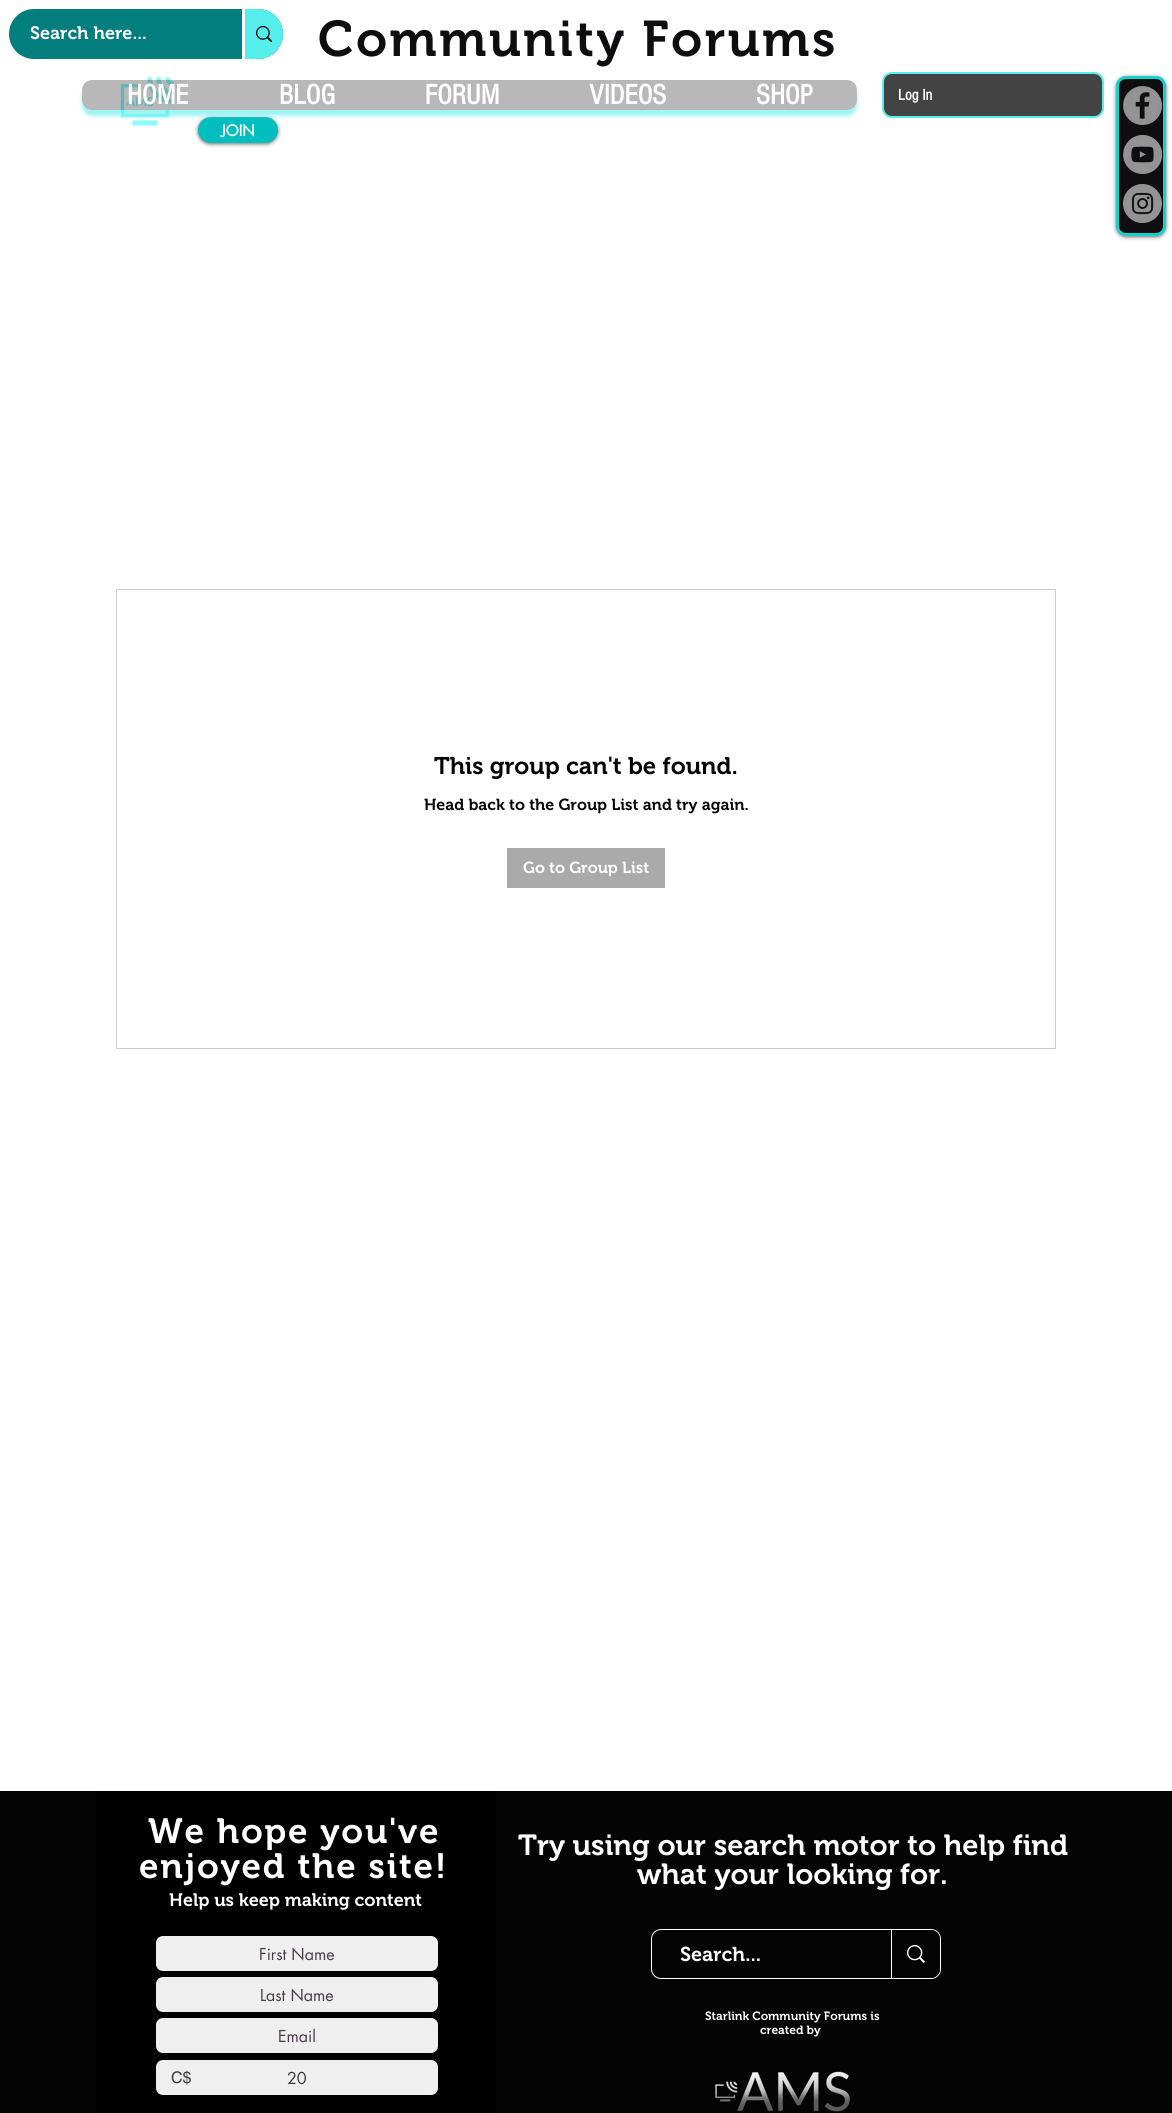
#include <cairo.h>
#include <math.h>
#include <stddef.h>


static void set_color(cairo_t *cr, unsigned color) {
    cairo_set_source_rgb(cr, (color >> 16) / 255.0, (color >> 8 & 255) / 255.0, (color & 255) / 255.0);
}

static void draw_text(cairo_t *cr, double x, double y, const char *s, const char *family, double size, int italic, int bold, unsigned color) {
    cairo_select_font_face(cr, family, italic ? CAIRO_FONT_SLANT_ITALIC : CAIRO_FONT_SLANT_NORMAL,
        bold ? CAIRO_FONT_WEIGHT_BOLD : CAIRO_FONT_WEIGHT_NORMAL);
    cairo_set_font_size(cr, size);
    set_color(cr, color);
    cairo_move_to(cr, x, y);
    cairo_show_text(cr, s);
}

static void draw_spaced(cairo_t *cr, double x, double y, const char *s, double letter, double word) {
    cairo_move_to(cr, x, y);
    while (*s) {
        char ch[5] = {0};
        int n = 0;
        do ch[n++] = *s++; while ((*s & 0xC0) == 0x80);
        cairo_show_text(cr, ch);
        cairo_rel_move_to(cr, letter + word * (*ch == ' '), 0);
    }
}

static void fill_rect(cairo_t *cr, double x, double y, double w, double h, unsigned color) {
    set_color(cr, color);
    cairo_rectangle(cr, x, y, w, h);
    cairo_fill(cr);
}

static void rounded_rect(cairo_t *cr, double x, double y, double w, double h, double r) {
    cairo_new_sub_path(cr);
    cairo_arc(cr, x + w - r, y + h - r, r, 0, M_PI / 2);
    cairo_arc(cr, x + r, y + h - r, r, M_PI / 2, M_PI);
    cairo_arc(cr, x + r, y + r, r, M_PI, 1.5 * M_PI);
    cairo_arc(cr, x + w - r, y + r, r, 1.5 * M_PI, 2 * M_PI);
    cairo_close_path(cr);
}

static void draw_shadow(cairo_t *cr, double x, double y, double w, double h, double r, double blur, double alpha) {
    cairo_push_group_with_content(cr, CAIRO_CONTENT_ALPHA);
    cairo_set_operator(cr, CAIRO_OPERATOR_SOURCE);
    for (int i = 15; i >= -15 && fmin(w, h) + blur * i / 3 > 0; i -= 2) {
        double e = blur * i / 6;
        cairo_set_source_rgba(cr, 0, 0, 0, alpha * erfc((i - 1) / 8.5) / 2);
        rounded_rect(cr, x - e, y - e, w + 2 * e, h + 2 * e, fmax(0, fmin(r + e + blur * .6, fmin(w, h) / 2 + e)));
        cairo_fill(cr);
    }
    cairo_pattern_t *soft = cairo_pop_group(cr);
    cairo_mask(cr, soft);
    cairo_pattern_destroy(soft);
}

static void draw_image(cairo_t *cr, const char *path, double x, double y, double w, double h) {
    cairo_surface_t *image = cairo_image_surface_create_from_png(path);
    cairo_save(cr);
    cairo_set_source_surface(cr, image, x, y);
    cairo_rectangle(cr, x, y, w, h);
    cairo_fill(cr);
    cairo_restore(cr);
    cairo_surface_destroy(image);
}

int main(void) {
    cairo_surface_t *surface = cairo_image_surface_create(CAIRO_FORMAT_RGB24, 1172, 2113);
    cairo_t *cr = cairo_create(surface);
    cairo_font_options_t *options = cairo_font_options_create();
    cairo_font_options_set_hint_metrics(options, CAIRO_HINT_METRICS_OFF);
    cairo_font_options_set_hint_style(options, CAIRO_HINT_STYLE_NONE);
    cairo_set_font_options(cr, options);
    cairo_set_miter_limit(cr, 4);
    set_color(cr, 0xFFFFFF);
    cairo_paint(cr);
    set_color(cr, 0x027E7E);
    rounded_rect(cr, 9, 9, 274, 50, 25);
    cairo_fill(cr);
    draw_text(cr, 30, 39, "Search here...", "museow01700 SemiBold", 18, 0, 0, 0xFFFFFF);
    set_color(cr, 0x56EEEA);
    cairo_new_path(cr);
    cairo_move_to(cr, 242, 9);
    cairo_line_to(cr, 258, 9);
    cairo_curve_to(cr, 272, 9, 283, 20, 283, 34);
    cairo_curve_to(cr, 283, 48, 272, 59, 258, 59);
    cairo_line_to(cr, 242, 59);
    cairo_close_path(cr);
    cairo_fill(cr);
    fill_rect(cr, 242, 9, 3, 50, 0xFFFFFF);
    draw_image(cr, "assets/img1.png", 256, 26, 16, 16);
    cairo_set_font_size(cr, 50);
    set_color(cr, 0x0F0D0F);
    draw_spaced(cr, 318, 56, "Community Forums", 2.5, 0);
    draw_image(cr, "assets/img2.png", 120, 77, 55, 49);
    set_color(cr, 0x000000);
    draw_shadow(cr, 198, 118, 80, 26, 13, 2, 0.6);
    set_color(cr, 0x02BEBE);
    rounded_rect(cr, 198, 117, 80, 26, 13);
    cairo_fill(cr);
    cairo_save(cr);
    cairo_set_fill_rule(cr, CAIRO_FILL_RULE_EVEN_ODD);
    cairo_new_path(cr);
    cairo_move_to(cr, 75, 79);
    cairo_line_to(cr, 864, 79);
    cairo_line_to(cr, 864, 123);
    cairo_line_to(cr, 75, 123);
    cairo_close_path(cr);
    cairo_move_to(cr, 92, 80);
    cairo_line_to(cr, 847, 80);
    cairo_curve_to(cr, 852.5, 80, 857, 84.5, 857, 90);
    cairo_line_to(cr, 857, 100);
    cairo_curve_to(cr, 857, 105.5, 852.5, 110, 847, 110);
    cairo_line_to(cr, 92, 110);
    cairo_curve_to(cr, 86.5, 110, 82, 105.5, 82, 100);
    cairo_line_to(cr, 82, 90);
    cairo_curve_to(cr, 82, 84.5, 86.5, 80, 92, 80);
    cairo_close_path(cr);
    cairo_clip(cr);
    set_color(cr, 0x56EEEA);
    draw_shadow(cr, 82, 86, 775, 30, 10, 2, 0.6);
    cairo_restore(cr);
    cairo_set_source_rgba(cr, 0, 0, 0, 0.28);
    rounded_rect(cr, 82, 80, 775, 30, 10);
    cairo_fill(cr);
    draw_text(cr, 127, 104, "HOME", "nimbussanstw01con", 29, 0, 1, 0xFFFFFF);
    draw_text(cr, 279, 104, "BLOG", "nimbussanstw01con", 29, 0, 1, 0xFFFFFF);
    draw_text(cr, 425, 104, "FORUM", "nimbussanstw01con", 29, 0, 1, 0xFFFFFF);
    draw_text(cr, 589, 104, "VIDEOS", "nimbussanstw01con", 29, 0, 1, 0xFFFFFF);
    draw_text(cr, 756, 104, "SHOP", "nimbussanstw01con", 29, 0, 1, 0xFFFFFF);
    set_color(cr, 0x444344);
    rounded_rect(cr, 883, 73, 220, 44, 9);
    cairo_fill_preserve(cr);
    set_color(cr, 0x56EEEA);
    cairo_stroke(cr);
    draw_text(cr, 898, 100, "Log In", "nimbussanstw01con", 16, 0, 1, 0xFFFFFF);
    draw_text(cr, 221, 136, "JOIN", "futura", 15, 0, 1, 0xFFFFFF);
    set_color(cr, 0x000000);
    draw_shadow(cr, 1116, 77, 50, 160, 10, 2, 0.6);
    set_color(cr, 0x0F0D0F);
    rounded_rect(cr, 1117.5, 77.5, 47, 157, 8.5);
    cairo_fill_preserve(cr);
    set_color(cr, 0x15D1CC);
    cairo_set_line_width(cr, 3);
    cairo_stroke(cr);
    draw_image(cr, "assets/img3.png", 1123, 86, 39, 39);
    draw_image(cr, "assets/img4.png", 1123, 135, 39, 39);
    draw_image(cr, "assets/img5.png", 1123, 184, 39, 39);
    cairo_rectangle(cr, 116.5, 589.5, 939, 459);
    set_color(cr, 0xCDCDCD);
    cairo_set_line_width(cr, 1);
    cairo_stroke(cr);
    draw_text(cr, 434, 774, "This group can't be found.", "museow01700 SemiBold", 24, 0, 0, 0x050405);
    draw_text(cr, 424, 810, "Head back to the Group List and try again.", "museow01700 SemiBold", 16, 0, 0, 0x050405);
    fill_rect(cr, 507, 848, 158, 40, 0xAAAAAA);
    draw_text(cr, 523, 873, "Go to Group List", "museow01700 SemiBold", 16, 0, 0, 0xFFFFFF);
    fill_rect(cr, 0, 1791, 1172, 322, 0x050405);
    fill_rect(cr, 96, 1791, 400, 322, 0x000000);
    cairo_set_font_size(cr, 35);
    set_color(cr, 0xFFFFFF);
    draw_spaced(cr, 148, 1843, "We hope you've", 1.75, 0);
    draw_spaced(cr, 139, 1878, "enjoyed the site!", 1.75, 0);
    draw_text(cr, 169, 1906, "Help us keep making content", "museow01700 SemiBold", 18, 0, 0, 0xFFFFFF);
    set_color(cr, 0xEFEFEF);
    rounded_rect(cr, 157, 1937, 280, 33, 6);
    cairo_fill_preserve(cr);
    cairo_set_line_width(cr, 2);
    cairo_stroke(cr);
    draw_text(cr, 259, 1960, "First Name", "futura", 16, 0, 0, 0x4B3C4B);
    set_color(cr, 0xEFEFEF);
    rounded_rect(cr, 157, 1978, 280, 33, 6);
    cairo_fill_preserve(cr);
    cairo_stroke(cr);
    draw_text(cr, 260, 2001, "Last Name", "futura", 16, 0, 0, 0x4B3C4B);
    set_color(cr, 0xEFEFEF);
    rounded_rect(cr, 157, 2019, 280, 33, 6);
    cairo_fill_preserve(cr);
    cairo_stroke(cr);
    draw_text(cr, 278, 2042, "Email", "futura", 16, 0, 0, 0x4B3C4B);
    set_color(cr, 0xEFEFEF);
    rounded_rect(cr, 157, 2061, 280, 33, 6);
    cairo_fill_preserve(cr);
    cairo_stroke(cr);
    draw_text(cr, 171, 2083, "C$", "helvetica", 16, 0, 0, 0x393939);
    draw_text(cr, 287, 2084, "20", "futura", 16, 0, 0, 0x393939);
    draw_text(cr, 518, 1855, "Try using our search motor to help find", "museow01700 SemiBold", 29, 0, 0, 0xFFFFFF);
    draw_text(cr, 637, 1884, "what your looking for.", "museow01700 SemiBold", 29, 0, 0, 0xFFFFFF);
    rounded_rect(cr, 651.5, 1929.5, 289, 49, 9.5);
    cairo_set_line_width(cr, 1);
    cairo_stroke(cr);
    draw_text(cr, 680, 1961, "Search...", "museow01700 SemiBold", 20, 0, 0, 0xFFFFFF);
    cairo_set_source_rgba(cr, 0.02, 0.016, 0.02, 0.8);
    cairo_new_path(cr);
    cairo_move_to(cr, 891, 1930);
    cairo_line_to(cr, 931, 1930);
    cairo_curve_to(cr, 936, 1930, 940, 1934, 940, 1939);
    cairo_line_to(cr, 940, 1969);
    cairo_curve_to(cr, 940, 1974, 936, 1978, 931, 1978);
    cairo_line_to(cr, 891, 1978);
    cairo_close_path(cr);
    cairo_fill(cr);
    fill_rect(cr, 891, 1930, 1, 48, 0xFFFFFF);
    draw_image(cr, "assets/img6.png", 907, 1945, 18, 18);
    draw_text(cr, 705, 2020, "Starlink Co", "museow01700 SemiBold", 12, 0, 0, 0xFFFFFF);
    draw_text(cr, 768, 2020, "mmunity Forums is", "museow01700 SemiBold", 12, 0, 0, 0xFFFFFF);
    draw_text(cr, 760, 2034, "created by", "museow01700 SemiBold", 12, 0, 0, 0xFFFFFF);
    draw_image(cr, "assets/img7.png", 715, 2071, 135, 41);
    cairo_surface_write_to_png(surface, "output.png");
    cairo_font_options_destroy(options);
    cairo_destroy(cr);
    cairo_surface_destroy(surface);
    return 0;
}
